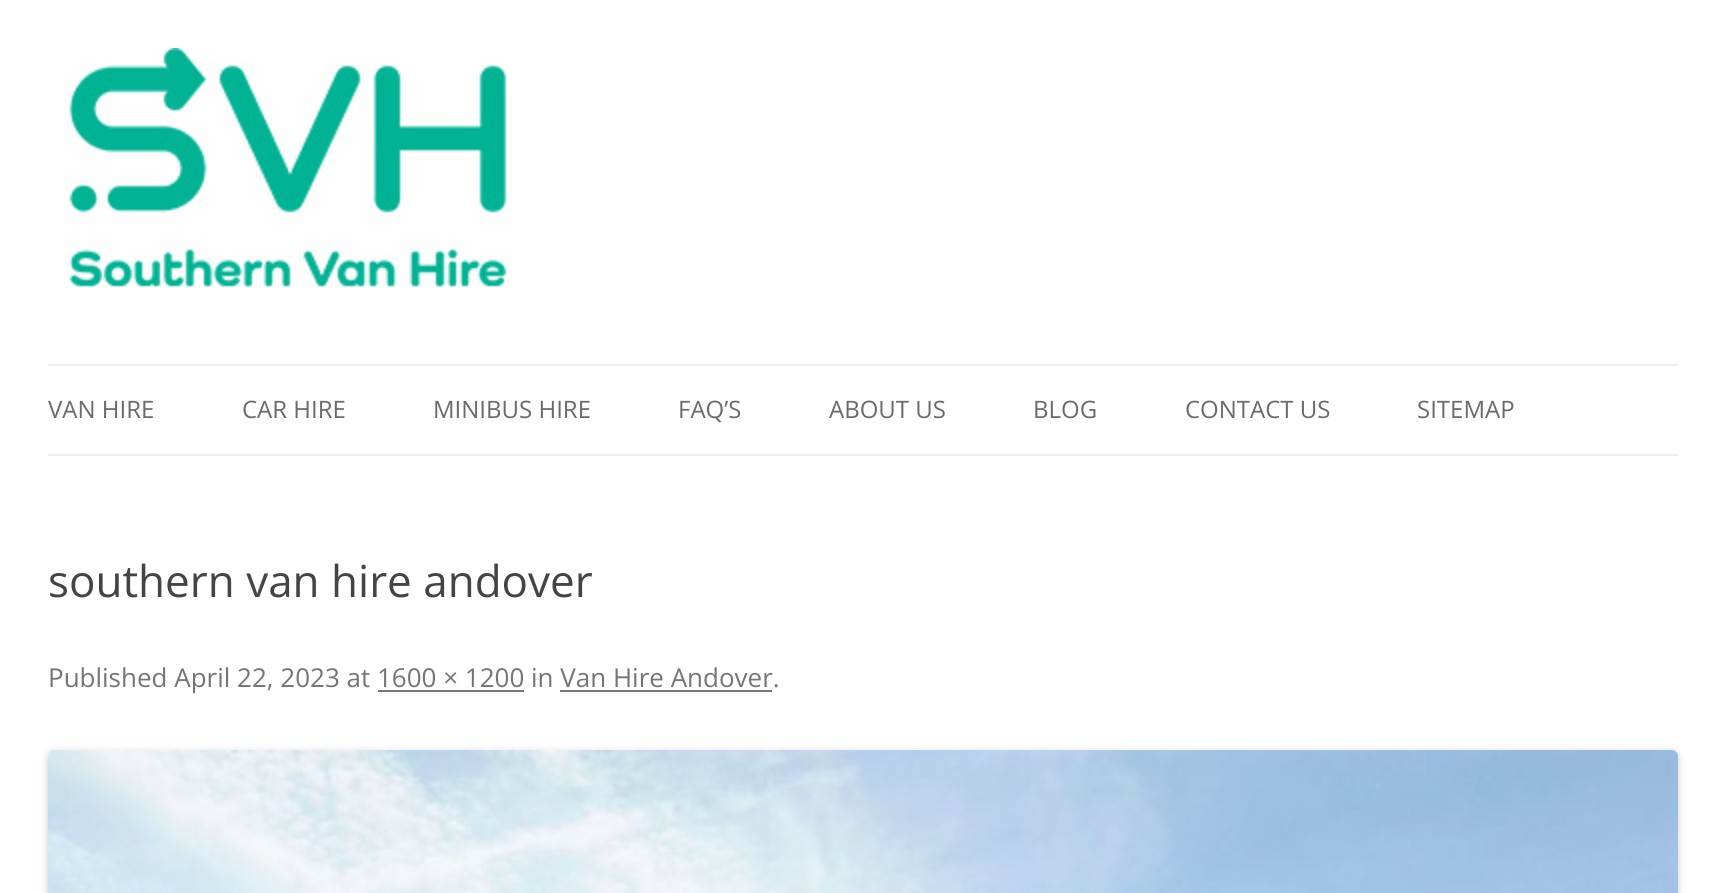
#include <cairo.h>
#include <math.h>
#include <stddef.h>


static void set_color(cairo_t *cr, unsigned color) {
    cairo_set_source_rgb(cr, (color >> 16) / 255.0, (color >> 8 & 255) / 255.0, (color & 255) / 255.0);
}

static void draw_text(cairo_t *cr, double x, double y, const char *s, const char *family, double size, int italic, int bold, unsigned color) {
    cairo_select_font_face(cr, family, italic ? CAIRO_FONT_SLANT_ITALIC : CAIRO_FONT_SLANT_NORMAL,
        bold ? CAIRO_FONT_WEIGHT_BOLD : CAIRO_FONT_WEIGHT_NORMAL);
    cairo_set_font_size(cr, size);
    set_color(cr, color);
    cairo_move_to(cr, x, y);
    cairo_show_text(cr, s);
}

static void fill_rect(cairo_t *cr, double x, double y, double w, double h, unsigned color) {
    set_color(cr, color);
    cairo_rectangle(cr, x, y, w, h);
    cairo_fill(cr);
}

static void rounded_rect(cairo_t *cr, double x, double y, double w, double h, double r) {
    cairo_new_sub_path(cr);
    cairo_arc(cr, x + w - r, y + h - r, r, 0, M_PI / 2);
    cairo_arc(cr, x + r, y + h - r, r, M_PI / 2, M_PI);
    cairo_arc(cr, x + r, y + r, r, M_PI, 1.5 * M_PI);
    cairo_arc(cr, x + w - r, y + r, r, 1.5 * M_PI, 2 * M_PI);
    cairo_close_path(cr);
}

static void draw_shadow(cairo_t *cr, double x, double y, double w, double h, double r, double blur, double alpha) {
    cairo_push_group_with_content(cr, CAIRO_CONTENT_ALPHA);
    cairo_set_operator(cr, CAIRO_OPERATOR_SOURCE);
    for (int i = 15; i >= -15 && fmin(w, h) + blur * i / 3 > 0; i -= 2) {
        double e = blur * i / 6;
        cairo_set_source_rgba(cr, 0, 0, 0, alpha * erfc((i - 1) / 8.5) / 2);
        rounded_rect(cr, x - e, y - e, w + 2 * e, h + 2 * e, fmax(0, fmin(r + e + blur * .6, fmin(w, h) / 2 + e)));
        cairo_fill(cr);
    }
    cairo_pattern_t *soft = cairo_pop_group(cr);
    cairo_mask(cr, soft);
    cairo_pattern_destroy(soft);
}

static void draw_image(cairo_t *cr, const char *path, double x, double y, double w, double h) {
    cairo_surface_t *image = cairo_image_surface_create_from_png(path);
    cairo_save(cr);
    cairo_set_source_surface(cr, image, x, y);
    cairo_rectangle(cr, x, y, w, h);
    cairo_fill(cr);
    cairo_restore(cr);
    cairo_surface_destroy(image);
}

int main(void) {
    cairo_surface_t *surface = cairo_image_surface_create(CAIRO_FORMAT_RGB24, 1725, 893);
    cairo_t *cr = cairo_create(surface);
    cairo_font_options_t *options = cairo_font_options_create();
    cairo_font_options_set_hint_metrics(options, CAIRO_HINT_METRICS_OFF);
    cairo_font_options_set_hint_style(options, CAIRO_HINT_STYLE_NONE);
    cairo_set_font_options(cr, options);
    cairo_set_miter_limit(cr, 4);
    set_color(cr, 0xFFFFFF);
    cairo_paint(cr);
    draw_image(cr, "assets/img1.png", 64, 48, 448, 240);
    fill_rect(cr, 48, 364, 1630, 2, 0xEDEDED);
    fill_rect(cr, 48, 454, 1630, 2, 0xEDEDED);
    draw_text(cr, 48, 418, "VAN HIRE", "Open Sans", 24, 0, 0, 0x6A6A6A);
    draw_text(cr, 242, 418, "CAR HIRE", "Open Sans", 24, 0, 0, 0x6A6A6A);
    draw_text(cr, 433, 418, "MINIBUS HIRE", "Open Sans", 24, 0, 0, 0x6A6A6A);
    draw_text(cr, 678, 418, "FAQ’S", "Open Sans", 24, 0, 0, 0x6A6A6A);
    draw_text(cr, 829, 418, "ABOUT US", "Open Sans", 24, 0, 0, 0x6A6A6A);
    draw_text(cr, 1033, 418, "BLOG", "Open Sans", 24, 0, 0, 0x6A6A6A);
    draw_text(cr, 1185, 418, "CONTACT US", "Open Sans", 24, 0, 0, 0x6A6A6A);
    draw_text(cr, 1417, 418, "SITEMAP", "Open Sans", 24, 0, 0, 0x6A6A6A);
    draw_text(cr, 48, 597, "southern van hire andover", "Open Sans", 44, 0, 0, 0x444444);
    draw_text(cr, 48, 687, "Published April 22, 2023 at 1600 × 1200 in Van Hire Andover.", "Open Sans", 26, 0, 0, 0x757575);
    fill_rect(cr, 378, 690, 146, 2, 0x757575);
    fill_rect(cr, 560, 690, 212, 2, 0x757575);
    set_color(cr, 0x000000);
    draw_shadow(cr, 48, 752, 1630, 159, 6, 4, 0.2);
    draw_image(cr, "assets/img2.png", 48, 750, 1630, 143);
    cairo_surface_write_to_png(surface, "output.png");
    cairo_font_options_destroy(options);
    cairo_destroy(cr);
    cairo_surface_destroy(surface);
    return 0;
}
